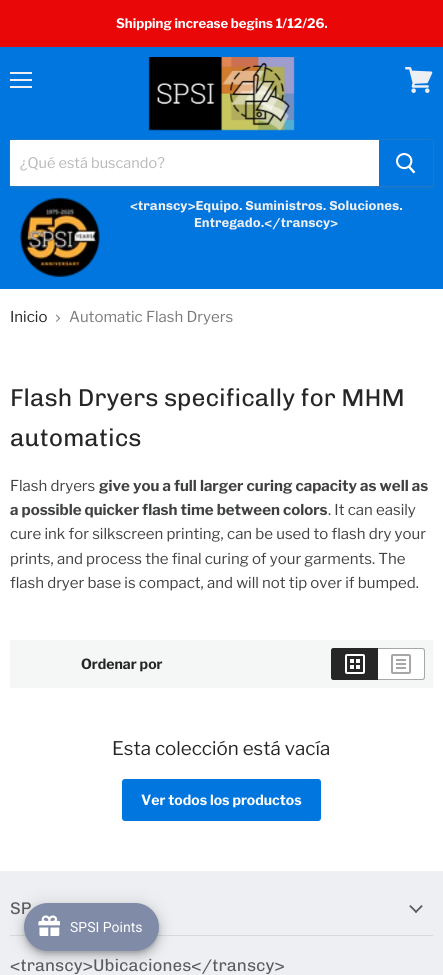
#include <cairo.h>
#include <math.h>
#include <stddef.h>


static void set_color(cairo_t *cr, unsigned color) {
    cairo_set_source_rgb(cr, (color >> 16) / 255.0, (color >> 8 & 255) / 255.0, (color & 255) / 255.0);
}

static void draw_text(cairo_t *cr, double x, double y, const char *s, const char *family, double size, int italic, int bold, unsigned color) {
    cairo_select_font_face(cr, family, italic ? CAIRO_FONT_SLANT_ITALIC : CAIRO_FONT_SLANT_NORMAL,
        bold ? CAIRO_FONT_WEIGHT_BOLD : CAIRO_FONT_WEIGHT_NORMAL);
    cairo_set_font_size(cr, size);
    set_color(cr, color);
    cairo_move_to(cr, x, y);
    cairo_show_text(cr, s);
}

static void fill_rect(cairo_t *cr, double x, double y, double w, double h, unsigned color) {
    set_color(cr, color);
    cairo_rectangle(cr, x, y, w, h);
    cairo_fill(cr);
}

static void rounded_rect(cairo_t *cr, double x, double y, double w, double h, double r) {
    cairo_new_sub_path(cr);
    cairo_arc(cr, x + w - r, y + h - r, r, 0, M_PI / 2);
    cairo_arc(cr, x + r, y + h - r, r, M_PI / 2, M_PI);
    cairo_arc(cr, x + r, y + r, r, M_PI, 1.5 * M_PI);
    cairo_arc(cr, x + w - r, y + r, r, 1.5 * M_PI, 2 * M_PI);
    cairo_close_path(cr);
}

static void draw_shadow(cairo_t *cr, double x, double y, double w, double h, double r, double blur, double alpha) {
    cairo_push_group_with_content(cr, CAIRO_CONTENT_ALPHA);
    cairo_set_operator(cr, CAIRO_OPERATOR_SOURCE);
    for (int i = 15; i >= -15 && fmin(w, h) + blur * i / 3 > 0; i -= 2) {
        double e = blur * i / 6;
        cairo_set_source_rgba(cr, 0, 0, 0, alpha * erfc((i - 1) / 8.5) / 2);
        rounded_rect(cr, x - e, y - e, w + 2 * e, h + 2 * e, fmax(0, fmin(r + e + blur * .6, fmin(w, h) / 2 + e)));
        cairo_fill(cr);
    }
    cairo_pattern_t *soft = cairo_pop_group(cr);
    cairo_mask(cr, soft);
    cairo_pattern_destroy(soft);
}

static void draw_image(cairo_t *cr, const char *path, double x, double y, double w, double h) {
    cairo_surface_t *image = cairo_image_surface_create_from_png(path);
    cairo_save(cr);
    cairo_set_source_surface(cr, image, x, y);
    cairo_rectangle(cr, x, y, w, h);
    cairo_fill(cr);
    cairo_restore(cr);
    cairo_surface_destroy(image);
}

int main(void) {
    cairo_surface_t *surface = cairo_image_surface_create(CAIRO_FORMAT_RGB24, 443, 975);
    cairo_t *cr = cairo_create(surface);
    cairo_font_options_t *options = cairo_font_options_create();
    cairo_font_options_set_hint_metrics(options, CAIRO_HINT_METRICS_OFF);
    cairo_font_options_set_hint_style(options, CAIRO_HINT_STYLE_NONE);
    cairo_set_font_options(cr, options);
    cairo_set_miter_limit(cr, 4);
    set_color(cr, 0xFFFFFF);
    cairo_paint(cr);
    fill_rect(cr, 0, 0, 443, 47, 0xEA0707);
    draw_text(cr, 116, 28, "Shipping increase begins 1/12/26.", "Libre Franklin", 13.1, 0, 1, 0xFFFFFF);
    fill_rect(cr, 0, 47, 443, 242, 0x0076DE);
    fill_rect(cr, 10, 72, 22, 2, 0xEDEFF3);
    fill_rect(cr, 10, 79, 22, 2, 0xEDEFF3);
    fill_rect(cr, 10, 86, 22, 2, 0xEDEFF3);
    draw_image(cr, "assets/img1.png", 405, 67, 28, 26);
    draw_image(cr, "assets/img2.png", 148, 57, 147, 74);
    set_color(cr, 0x808080);
    draw_shadow(cr, 9, 141, 425, 48, 4, 1.5, 0.11);
    rounded_rect(cr, 9.5, 139.5, 424, 47, 3.5);
    cairo_set_source_rgba(cr, 0.502, 0.502, 0.502, 0.2);
    cairo_set_line_width(cr, 1);
    cairo_stroke(cr);
    fill_rect(cr, 10, 140, 369, 46, 0xFFFFFF);
    draw_text(cr, 20, 168, "¿Qué está buscando?", "Libre Franklin", 14.5, 0, 0, 0xB8B8B8);
    set_color(cr, 0x0076DE);
    cairo_new_path(cr);
    cairo_move_to(cr, 379.5, 140.5);
    cairo_line_to(cr, 430, 140.5);
    cairo_curve_to(cr, 431.5, 140.5, 432.5, 141.5, 432.5, 143);
    cairo_line_to(cr, 432.5, 183);
    cairo_curve_to(cr, 432.5, 184.5, 431.5, 185.5, 430, 185.5);
    cairo_line_to(cr, 379.5, 185.5);
    cairo_close_path(cr);
    cairo_fill_preserve(cr);
    cairo_stroke(cr);
    draw_image(cr, "assets/img3.png", 396, 153, 20, 21);
    draw_image(cr, "assets/img4.png", 20, 197, 80, 80);
    draw_text(cr, 130, 210, "<transcy>Equipo. Suministros. Soluciones.", "Chivo", 13.1, 0, 1, 0xEDEFF3);
    draw_text(cr, 194, 227, "Entregado.</transcy>", "Chivo", 13.1, 0, 1, 0xEDEFF3);
    draw_text(cr, 10, 322, "Inicio", "Libre Franklin", 15, 0, 0, 0x262626);
    draw_image(cr, "assets/img5.png", 56, 314, 5, 8);
    draw_text(cr, 69, 322, "Automatic Flash Dryers", "Libre Franklin", 15, 0, 0, 0x7B7A7A);
    draw_text(cr, 10, 406, "Flash Dryers specifically for MHM", "Chivo", 24.4, 0, 0, 0x262626);
    draw_text(cr, 10, 446, "automatics", "Chivo", 24.4, 0, 0, 0x262626);
    draw_text(cr, 10, 491, "Flash dryers", "Libre Franklin", 15, 0, 0, 0x404141);
    draw_text(cr, 99, 491, "give you a full larger curing capacity as well as", "Libre Franklin", 15, 0, 1, 0x404141);
    draw_text(cr, 10, 515, "a possible quicker flash time between colors", "Libre Franklin", 15, 0, 1, 0x404141);
    draw_text(cr, 328, 515, ". It can easily", "Libre Franklin", 15, 0, 0, 0x404141);
    draw_text(cr, 10, 539, "cure ink for silkscreen printing, can be used to flash dry your", "Libre Franklin", 15, 0, 0, 0x404141);
    draw_text(cr, 10, 564, "prints, and process the final curing of your garments. The", "Libre Franklin", 15, 0, 0, 0x404141);
    draw_text(cr, 10, 588, "flash dryer base is compact, and will not tip over if bumped.", "Libre Franklin", 15, 0, 0, 0x404141);
    fill_rect(cr, 10, 640, 423, 48, 0xF5F6F6);
    draw_text(cr, 81, 669, "Ordenar por", "Libre Franklin", 14, 0, 1, 0x262626);
    cairo_new_path(cr);
    cairo_move_to(cr, 334, 648);
    cairo_line_to(cr, 378, 648);
    cairo_line_to(cr, 378, 680);
    cairo_line_to(cr, 334, 680);
    cairo_curve_to(cr, 332.5, 680, 331, 678.5, 331, 677);
    cairo_line_to(cr, 331, 651);
    cairo_curve_to(cr, 331, 649.5, 332.5, 648, 334, 648);
    cairo_close_path(cr);
    cairo_fill(cr);
    cairo_set_fill_rule(cr, CAIRO_FILL_RULE_EVEN_ODD);
    cairo_new_path(cr);
    cairo_move_to(cr, 334, 648);
    cairo_line_to(cr, 378, 648);
    cairo_line_to(cr, 378, 680);
    cairo_line_to(cr, 334, 680);
    cairo_curve_to(cr, 332, 680, 331, 679, 331, 677);
    cairo_line_to(cr, 331, 651);
    cairo_curve_to(cr, 331, 649, 332, 648, 334, 648);
    cairo_close_path(cr);
    cairo_move_to(cr, 334, 649);
    cairo_line_to(cr, 378, 649);
    cairo_line_to(cr, 378, 679);
    cairo_line_to(cr, 334, 679);
    cairo_curve_to(cr, 333, 679, 332, 678, 332, 677);
    cairo_line_to(cr, 332, 651);
    cairo_curve_to(cr, 332, 650, 333, 649, 334, 649);
    cairo_close_path(cr);
    cairo_fill(cr);
    draw_image(cr, "assets/img6.png", 345, 654, 20, 20);
    set_color(cr, 0xFFFFFF);
    cairo_new_path(cr);
    cairo_move_to(cr, 378, 648);
    cairo_line_to(cr, 422, 648);
    cairo_curve_to(cr, 423.5, 648, 425, 649.5, 425, 651);
    cairo_line_to(cr, 425, 677);
    cairo_curve_to(cr, 425, 678.5, 423.5, 680, 422, 680);
    cairo_line_to(cr, 378, 680);
    cairo_close_path(cr);
    cairo_fill(cr);
    set_color(cr, 0xA6A7A7);
    cairo_new_path(cr);
    cairo_move_to(cr, 378, 648);
    cairo_line_to(cr, 422, 648);
    cairo_curve_to(cr, 424, 648, 425, 649, 425, 651);
    cairo_line_to(cr, 425, 677);
    cairo_curve_to(cr, 425, 679, 424, 680, 422, 680);
    cairo_line_to(cr, 378, 680);
    cairo_close_path(cr);
    cairo_move_to(cr, 378, 649);
    cairo_line_to(cr, 422, 649);
    cairo_curve_to(cr, 423, 649, 424, 650, 424, 651);
    cairo_line_to(cr, 424, 677);
    cairo_curve_to(cr, 424, 678, 423, 679, 422, 679);
    cairo_line_to(cr, 378, 679);
    cairo_close_path(cr);
    cairo_fill(cr);
    draw_image(cr, "assets/img7.png", 391, 654, 20, 20);
    draw_text(cr, 112, 755, "Esta colección está vacía", "Libre Franklin", 18.75, 0, 0, 0x262626);
    set_color(cr, 0x0076DE);
    rounded_rect(cr, 122.5, 779.5, 198, 41, 2.5);
    cairo_fill_preserve(cr);
    cairo_stroke(cr);
    draw_text(cr, 141, 805, "Ver todos los productos", "Libre Franklin", 14, 0, 1, 0xFFFFFF);
    fill_rect(cr, 0, 871, 443, 104, 0xEDEFF3);
    fill_rect(cr, 10, 935, 423, 1, 0xD7D9DC);
    draw_text(cr, 10, 914, "SP", "Chivo", 16.9, 0, 0, 0x5C5C5C);
    draw_image(cr, "assets/img8.png", 409, 905, 14, 8);
    draw_text(cr, 10, 971, "<transcy>Ubicaciones</transcy>", "Chivo", 16.9, 0, 0, 0x5C5C5C);
    set_color(cr, 0x000000);
    draw_shadow(cr, 24, 904, 135, 48, 24, 9, 0.12);
    draw_shadow(cr, 24, 909, 135, 48, 24, 5, 0.14);
    draw_shadow(cr, 25, 907, 133, 46, 23, 2.5, 0.2);
    set_color(cr, 0x808BA7);
    rounded_rect(cr, 24, 903, 135, 48, 24);
    cairo_fill(cr);
    draw_image(cr, "assets/img9.png", 38, 915, 22, 21);
    draw_text(cr, 70, 932, "SPSI Points", "Roboto", 14, 0, 0, 0xFFFFFF);
    cairo_surface_write_to_png(surface, "output.png");
    cairo_font_options_destroy(options);
    cairo_destroy(cr);
    cairo_surface_destroy(surface);
    return 0;
}
